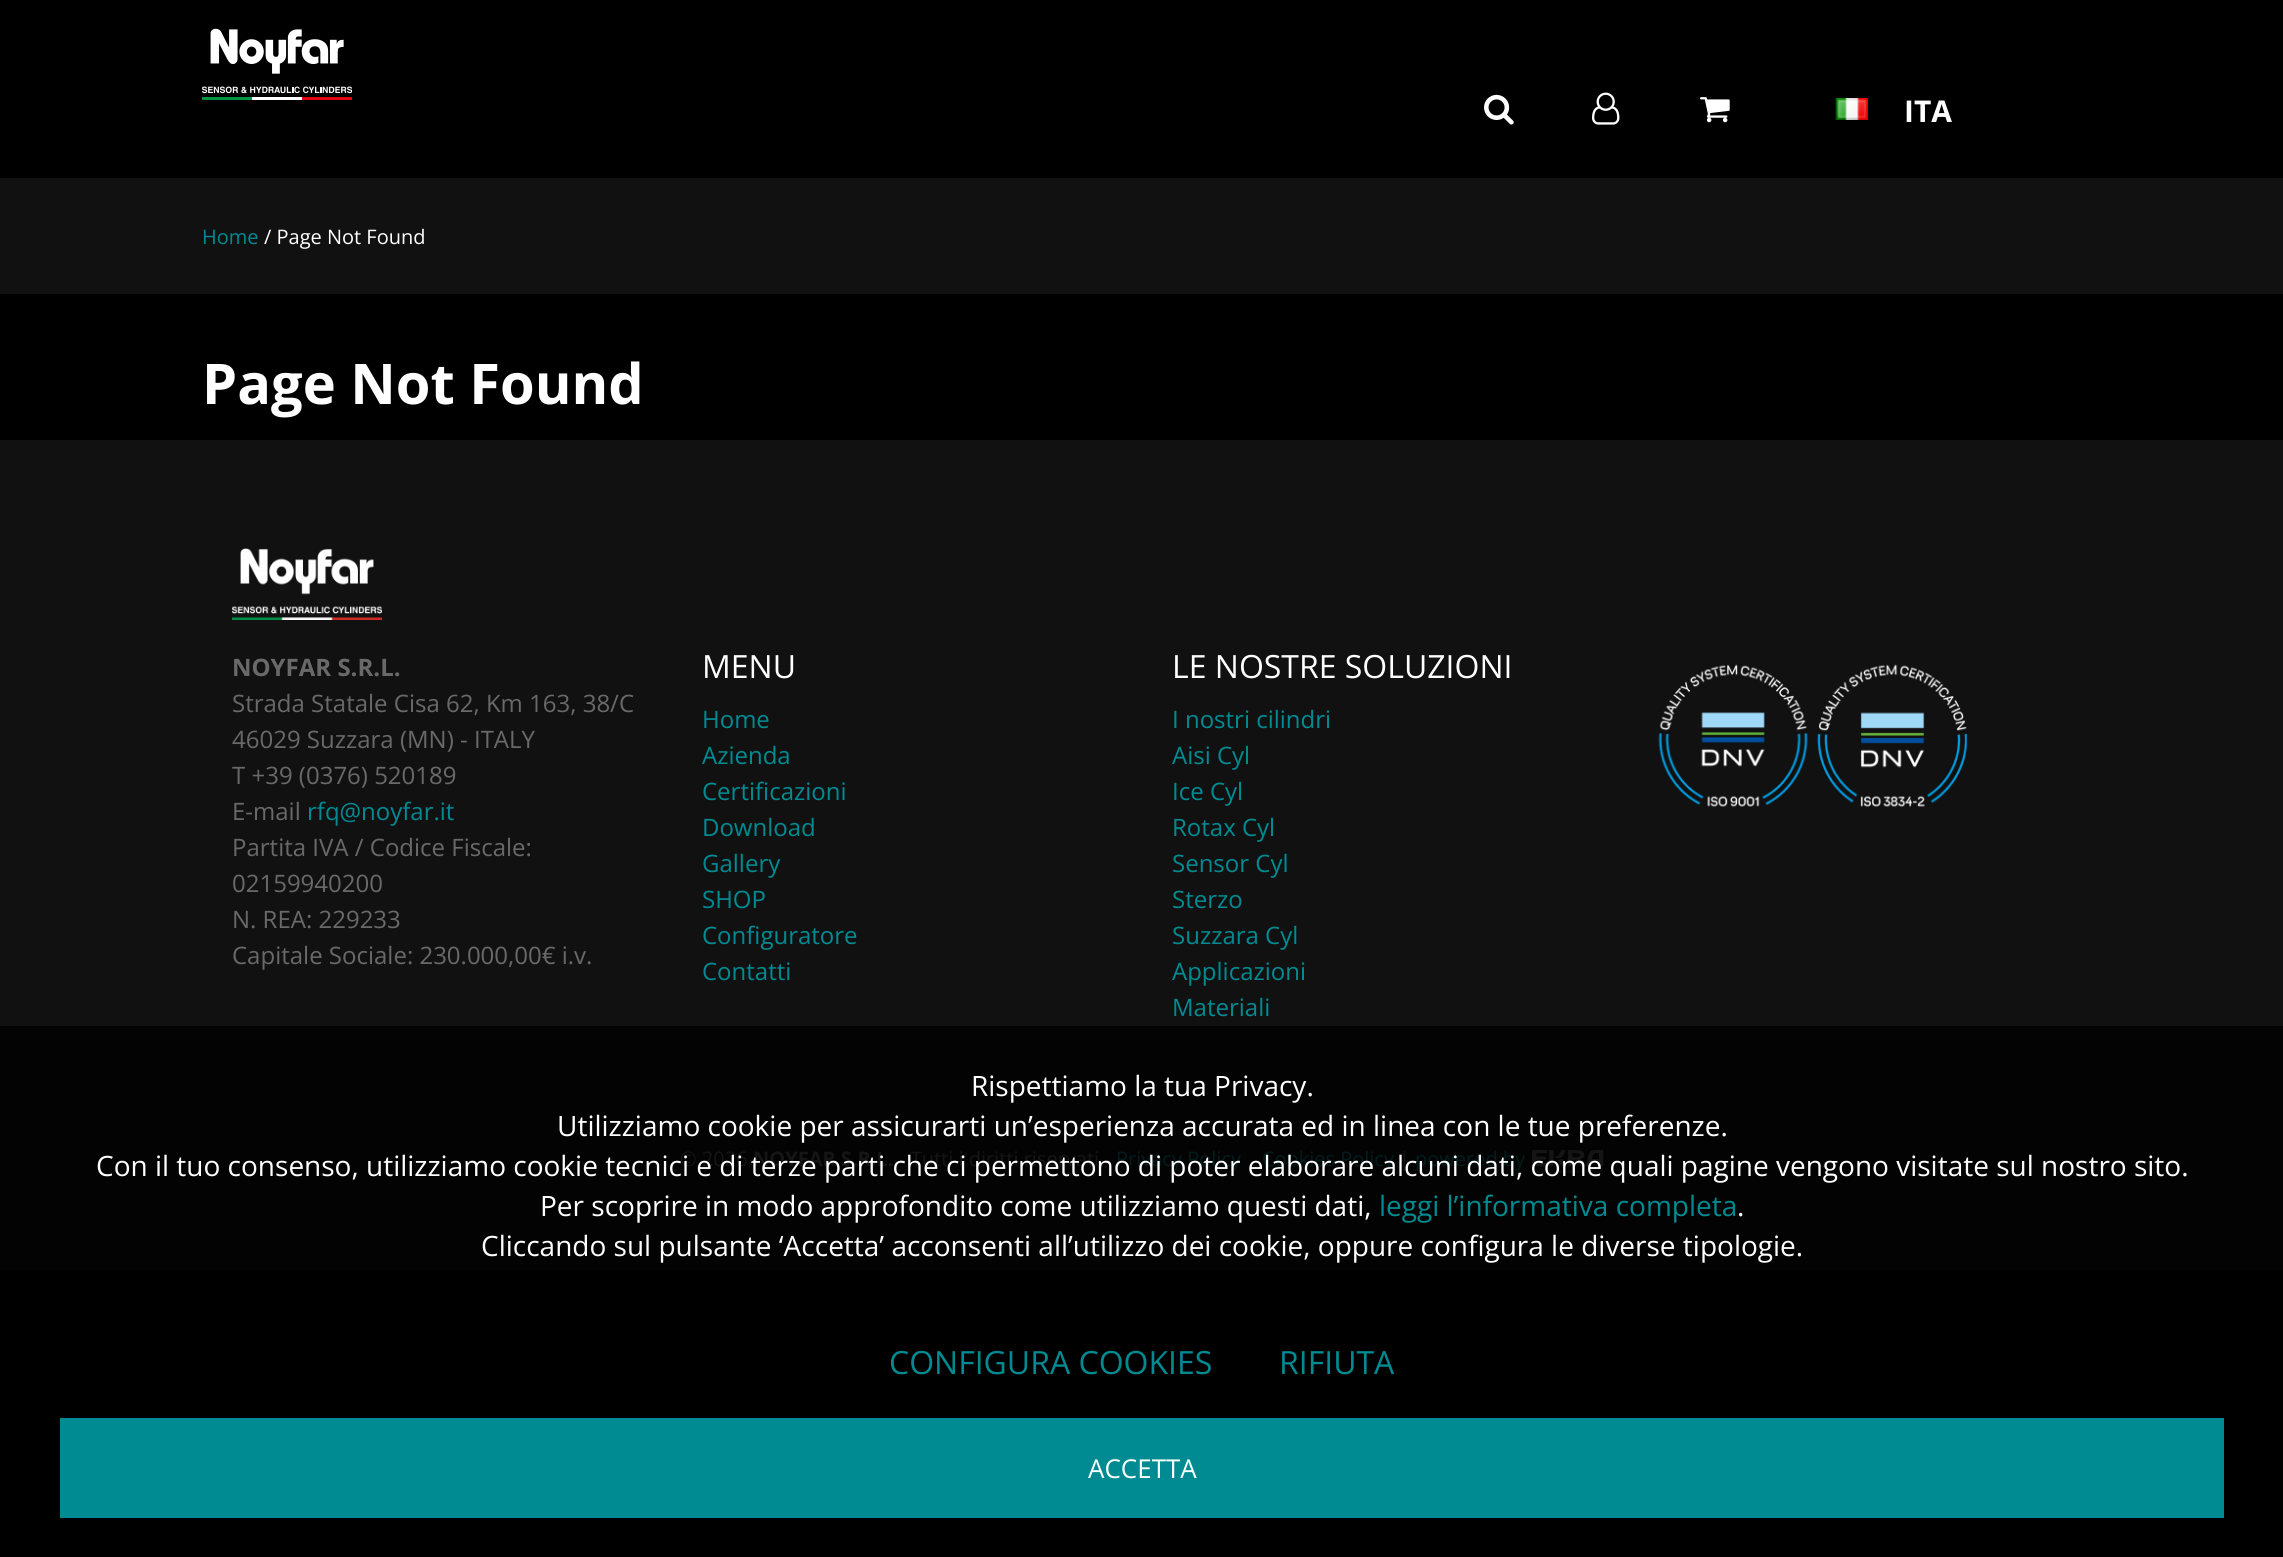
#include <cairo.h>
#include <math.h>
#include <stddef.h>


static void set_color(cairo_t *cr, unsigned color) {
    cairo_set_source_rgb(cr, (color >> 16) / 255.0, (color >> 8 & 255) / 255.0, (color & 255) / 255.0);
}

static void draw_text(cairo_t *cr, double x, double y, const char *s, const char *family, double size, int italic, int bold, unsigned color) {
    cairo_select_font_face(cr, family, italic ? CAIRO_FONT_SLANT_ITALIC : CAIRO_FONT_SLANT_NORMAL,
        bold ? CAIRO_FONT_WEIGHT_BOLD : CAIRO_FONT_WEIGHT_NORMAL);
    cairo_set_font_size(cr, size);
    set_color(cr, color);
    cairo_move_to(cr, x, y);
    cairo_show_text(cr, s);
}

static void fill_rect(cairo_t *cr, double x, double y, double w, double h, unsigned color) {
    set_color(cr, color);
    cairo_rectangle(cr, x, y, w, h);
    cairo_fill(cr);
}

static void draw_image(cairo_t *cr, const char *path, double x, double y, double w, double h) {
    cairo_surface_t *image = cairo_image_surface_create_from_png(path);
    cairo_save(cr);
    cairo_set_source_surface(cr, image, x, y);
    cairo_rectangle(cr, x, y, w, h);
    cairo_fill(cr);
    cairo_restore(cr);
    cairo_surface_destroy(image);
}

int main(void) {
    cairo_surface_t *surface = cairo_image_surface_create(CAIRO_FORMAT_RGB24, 2283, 1557);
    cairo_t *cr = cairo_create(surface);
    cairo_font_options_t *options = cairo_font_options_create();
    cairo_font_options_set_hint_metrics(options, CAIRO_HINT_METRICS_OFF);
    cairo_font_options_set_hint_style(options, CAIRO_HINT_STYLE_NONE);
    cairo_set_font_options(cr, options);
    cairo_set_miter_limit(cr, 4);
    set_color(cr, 0x000000);
    cairo_paint(cr);
    draw_image(cr, "assets/img1.png", 202, 28, 150, 72);
    draw_image(cr, "assets/img2.png", 1484, 94, 30, 31);
    draw_image(cr, "assets/img3.png", 1592, 92, 28, 33);
    draw_image(cr, "assets/img4.png", 1700, 97, 30, 26);
    draw_image(cr, "assets/img5.png", 1835, 98, 33, 22);
    draw_text(cr, 1904, 122, "ITA", "Open Sans", 30, 0, 1, 0xFFFFFF);
    fill_rect(cr, 0, 178, 2283, 116, 0x111111);
    draw_text(cr, 202, 244, "Home", "Open Sans", 20, 0, 0, 0x008B93);
    draw_text(cr, 264, 244, "/ Page Not Found", "Open Sans", 20, 0, 0, 0xFFFFFF);
    draw_text(cr, 202, 404, "Page Not Found", "Open Sans", 56, 0, 1, 0xFFFFFF);
    fill_rect(cr, 0, 440, 2283, 586, 0x111111);
    fill_rect(cr, 0, 1026, 2283, 244, 0x030303);
    draw_image(cr, "assets/img6.png", 232, 548, 150, 72);
    draw_text(cr, 232, 676, "NOYFAR S.R.L.", "Open Sans", 24, 0, 1, 0x696969);
    draw_text(cr, 232, 712, "Strada Statale Cisa 62, Km 163, 38/C", "Open Sans", 24, 0, 0, 0x696969);
    draw_text(cr, 232, 748, "46029 Suzzara (MN) - ITALY", "Open Sans", 24, 0, 0, 0x696969);
    draw_text(cr, 232, 784, "T +39 (0376) 520189", "Open Sans", 24, 0, 0, 0x696969);
    draw_text(cr, 232, 820, "E-mail", "Open Sans", 24, 0, 0, 0x696969);
    draw_text(cr, 307, 820, "rfq@noyfar.it", "Open Sans", 24, 0, 0, 0x008B93);
    draw_text(cr, 232, 856, "Partita IVA / Codice Fiscale:", "Open Sans", 24, 0, 0, 0x696969);
    draw_text(cr, 232, 892, "02159940200", "Open Sans", 24, 0, 0, 0x696969);
    draw_text(cr, 232, 928, "N. REA: 229233", "Open Sans", 24, 0, 0, 0x696969);
    draw_text(cr, 232, 964, "Capitale Sociale: 230.000,00€ i.v.", "Open Sans", 24, 0, 0, 0x696969);
    draw_text(cr, 702, 678, "MENU", "Open Sans", 32, 0, 0, 0xFFFFFF);
    draw_text(cr, 702, 728, "Home", "Open Sans", 24, 0, 0, 0x008B93);
    draw_text(cr, 702, 764, "Azienda", "Open Sans", 24, 0, 0, 0x008B93);
    draw_text(cr, 702, 800, "Certificazioni", "Open Sans", 24, 0, 0, 0x008B93);
    draw_text(cr, 702, 836, "Download", "Open Sans", 24, 0, 0, 0x008B93);
    draw_text(cr, 702, 872, "Gallery", "Open Sans", 24, 0, 0, 0x008B93);
    draw_text(cr, 702, 908, "SHOP", "Open Sans", 24, 0, 0, 0x008B93);
    draw_text(cr, 702, 944, "Configuratore", "Open Sans", 24, 0, 0, 0x008B93);
    draw_text(cr, 702, 980, "Contatti", "Open Sans", 24, 0, 0, 0x008B93);
    draw_text(cr, 1172, 678, "LE NOSTRE SOLUZIONI", "Open Sans", 32, 0, 0, 0xFFFFFF);
    draw_text(cr, 1172, 728, "I nostri cilindri", "Open Sans", 24, 0, 0, 0x008B93);
    draw_text(cr, 1172, 764, "Aisi Cyl", "Open Sans", 24, 0, 0, 0x008B93);
    draw_text(cr, 1172, 800, "Ice Cyl", "Open Sans", 24, 0, 0, 0x008B93);
    draw_text(cr, 1172, 836, "Rotax Cyl", "Open Sans", 24, 0, 0, 0x008B93);
    draw_text(cr, 1172, 872, "Sensor Cyl", "Open Sans", 24, 0, 0, 0x008B93);
    draw_text(cr, 1172, 908, "Sterzo", "Open Sans", 24, 0, 0, 0x008B93);
    draw_text(cr, 1172, 944, "Suzzara Cyl", "Open Sans", 24, 0, 0, 0x008B93);
    draw_text(cr, 1172, 980, "Applicazioni", "Open Sans", 24, 0, 0, 0x008B93);
    draw_text(cr, 1172, 1016, "Materiali", "Open Sans", 24, 0, 0, 0x008B93);
    draw_image(cr, "assets/img7.png", 1658, 664, 309, 143);
    draw_text(cr, 680, 1166, "© 2026", "Open Sans", 20, 0, 0, 0x151515);
    draw_text(cr, 753, 1166, "NOYFAR S.R.L.", "Open Sans", 20, 0, 1, 0x151515);
    draw_text(cr, 899, 1166, "- Tutti i diritti riservati -", "Open Sans", 20, 0, 0, 0x151515);
    draw_text(cr, 1116, 1166, "Privacy Policy", "Open Sans", 20, 0, 0, 0x001C1D);
    draw_text(cr, 1262, 1166, "Cookies Policy", "Open Sans", 20, 0, 0, 0x001C1D);
    draw_text(cr, 1399, 1166, "|", "Open Sans", 20, 0, 0, 0x151515);
    draw_text(cr, 1415, 1166, "powered by", "Open Sans", 20, 0, 0, 0x001C1D);
    draw_image(cr, "assets/img8.png", 1532, 1150, 72, 24);
    draw_text(cr, 971, 1096, "Rispettiamo la tua Privacy.", "Open Sans", 28, 0, 0, 0xFFFFFF);
    draw_text(cr, 557, 1136, "Utilizziamo cookie per assicurarti un’esperienza accurata ed in linea con le tue preferenze.", "Open Sans", 28, 0, 0, 0xFFFFFF);
    draw_text(cr, 96, 1176, "Con il tuo consenso, utilizziamo cookie tecnici e di terze parti che ci permettono di poter elaborare alcuni dati, come quali pagine vengono visitate sul nostro sito.", "Open Sans", 28, 0, 0, 0xFFFFFF);
    draw_text(cr, 540, 1216, "Per scoprire in modo approfondito come utilizziamo questi dati,", "Open Sans", 28, 0, 0, 0xFFFFFF);
    draw_text(cr, 1379, 1216, "leggi l’informativa completa", "Open Sans", 28, 0, 0, 0x008B93);
    draw_text(cr, 1737, 1216, ".", "Open Sans", 28, 0, 0, 0xFFFFFF);
    draw_text(cr, 481, 1256, "Cliccando sul pulsante ‘Accetta’ acconsenti all’utilizzo dei cookie, oppure configura le diverse tipologie.", "Open Sans", 28, 0, 0, 0xFFFFFF);
    draw_text(cr, 889, 1374, "CONFIGURA COOKIES", "Open Sans", 32, 0, 0, 0x008B93);
    draw_text(cr, 1279, 1374, "RIFIUTA", "Open Sans", 32, 0, 0, 0x008B93);
    fill_rect(cr, 60, 1418, 2164, 100, 0x008B93);
    draw_text(cr, 1088, 1478, "ACCETTA", "Open Sans", 26, 0, 0, 0xFFFFFF);
    cairo_surface_write_to_png(surface, "output.png");
    cairo_font_options_destroy(options);
    cairo_destroy(cr);
    cairo_surface_destroy(surface);
    return 0;
}
